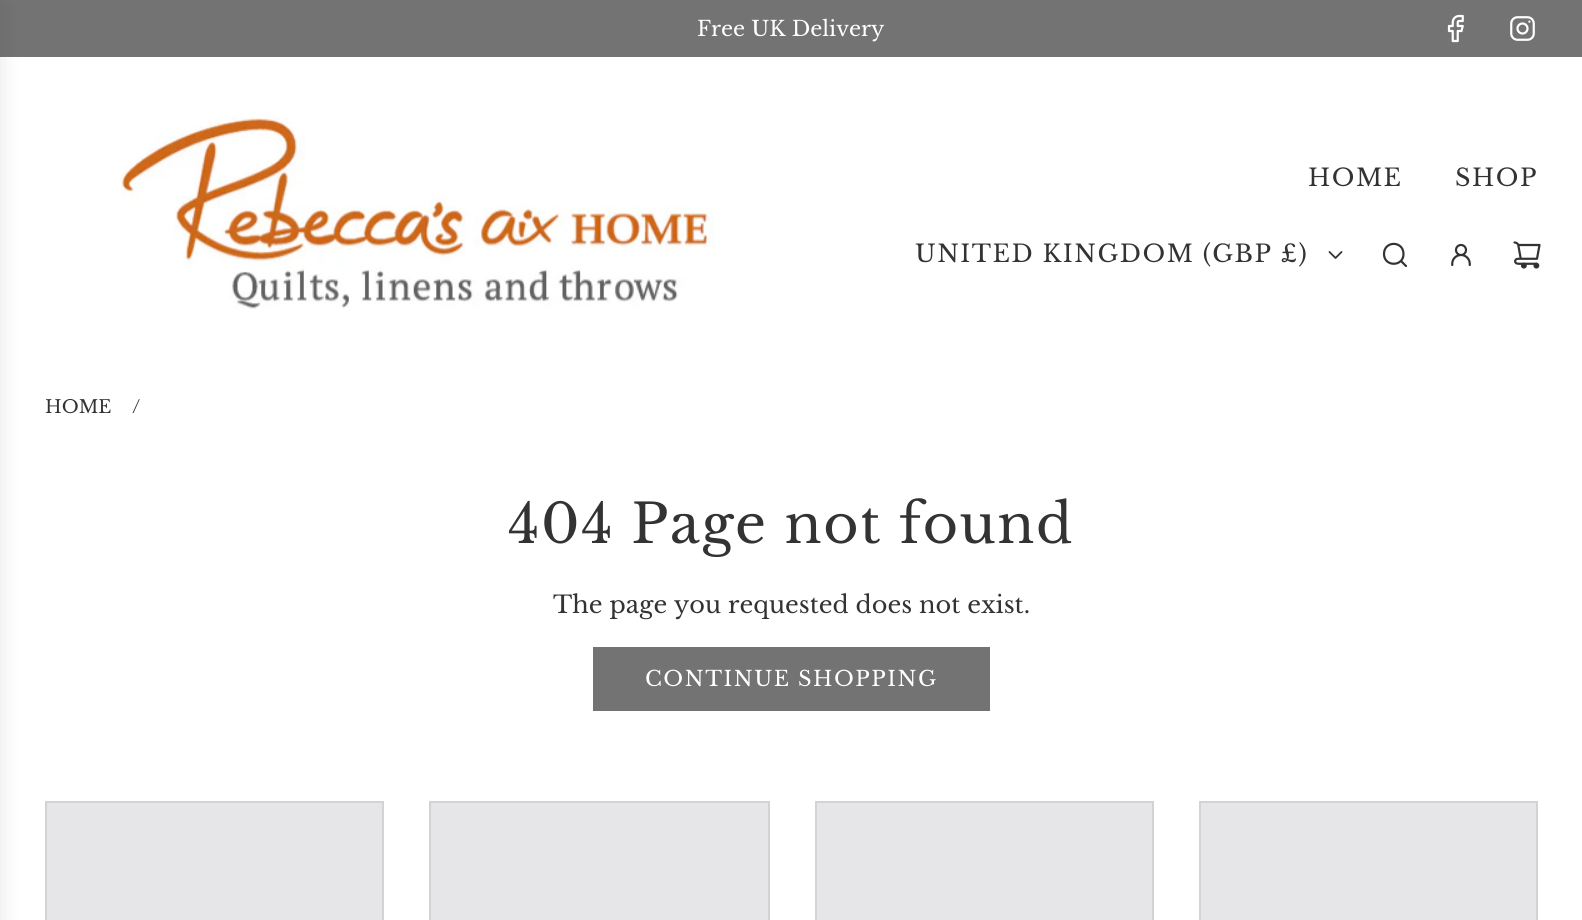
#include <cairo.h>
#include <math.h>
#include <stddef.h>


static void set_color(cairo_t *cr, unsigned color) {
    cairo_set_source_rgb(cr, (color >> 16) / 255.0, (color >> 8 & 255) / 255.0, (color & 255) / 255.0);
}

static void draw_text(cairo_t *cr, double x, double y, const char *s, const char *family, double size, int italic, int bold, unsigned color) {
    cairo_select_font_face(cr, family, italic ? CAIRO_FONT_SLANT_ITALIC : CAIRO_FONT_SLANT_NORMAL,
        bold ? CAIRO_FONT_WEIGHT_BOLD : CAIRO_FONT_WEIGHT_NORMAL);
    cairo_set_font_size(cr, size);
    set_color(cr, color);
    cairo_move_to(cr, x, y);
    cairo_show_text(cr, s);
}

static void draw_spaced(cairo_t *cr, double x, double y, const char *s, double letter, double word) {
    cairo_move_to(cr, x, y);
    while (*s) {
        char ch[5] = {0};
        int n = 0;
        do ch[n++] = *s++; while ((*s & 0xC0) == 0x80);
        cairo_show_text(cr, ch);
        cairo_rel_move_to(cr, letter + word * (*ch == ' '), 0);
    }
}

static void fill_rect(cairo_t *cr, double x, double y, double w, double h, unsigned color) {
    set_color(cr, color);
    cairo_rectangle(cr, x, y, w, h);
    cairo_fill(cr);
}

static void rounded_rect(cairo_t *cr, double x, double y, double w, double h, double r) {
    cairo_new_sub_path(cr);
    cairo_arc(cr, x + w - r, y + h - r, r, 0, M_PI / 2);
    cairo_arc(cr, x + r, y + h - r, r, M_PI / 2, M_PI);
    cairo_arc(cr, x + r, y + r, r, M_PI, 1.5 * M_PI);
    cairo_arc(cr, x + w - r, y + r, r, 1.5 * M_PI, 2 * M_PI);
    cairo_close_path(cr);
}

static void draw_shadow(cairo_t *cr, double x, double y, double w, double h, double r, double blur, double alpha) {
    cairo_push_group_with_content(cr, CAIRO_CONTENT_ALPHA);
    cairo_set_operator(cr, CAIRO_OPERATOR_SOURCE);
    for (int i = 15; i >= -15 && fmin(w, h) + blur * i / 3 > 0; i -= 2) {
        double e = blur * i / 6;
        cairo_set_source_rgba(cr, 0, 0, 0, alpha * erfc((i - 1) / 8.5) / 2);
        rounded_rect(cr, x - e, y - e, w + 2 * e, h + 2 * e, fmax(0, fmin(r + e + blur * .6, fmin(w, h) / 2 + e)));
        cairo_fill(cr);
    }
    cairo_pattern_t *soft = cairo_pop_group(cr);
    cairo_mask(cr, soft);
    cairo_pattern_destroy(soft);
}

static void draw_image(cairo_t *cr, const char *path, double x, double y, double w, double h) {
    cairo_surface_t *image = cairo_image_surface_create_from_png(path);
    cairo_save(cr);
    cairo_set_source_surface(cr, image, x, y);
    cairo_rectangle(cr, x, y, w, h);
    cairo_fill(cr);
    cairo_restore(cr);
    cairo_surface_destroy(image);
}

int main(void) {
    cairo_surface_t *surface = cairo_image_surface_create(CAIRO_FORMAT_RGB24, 1582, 920);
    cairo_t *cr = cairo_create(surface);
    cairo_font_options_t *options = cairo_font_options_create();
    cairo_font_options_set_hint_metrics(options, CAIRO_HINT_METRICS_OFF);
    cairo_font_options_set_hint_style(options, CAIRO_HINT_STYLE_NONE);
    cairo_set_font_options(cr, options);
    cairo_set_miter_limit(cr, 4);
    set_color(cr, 0xFFFFFF);
    cairo_paint(cr);
    fill_rect(cr, 0, 0, 1582, 57, 0x737373);
    draw_text(cr, 697, 36, "Free UK Delivery", "Libre Baskerville", 21, 0, 0, 0xFFFFFF);
    draw_image(cr, "assets/img1.png", 1447, 14, 17, 29);
    draw_image(cr, "assets/img2.png", 1510, 16, 25, 25);
    set_color(cr, 0x000000);
    draw_shadow(cr, -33, 8, 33, 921, 0, 11, 0.1);
    draw_image(cr, "assets/img3.png", 120, 117, 595, 192);
    cairo_set_font_size(cr, 24);
    set_color(cr, 0x333333);
    draw_spaced(cr, 1308, 186, "HOME", 1.5, 0);
    draw_spaced(cr, 1455, 186, "SHOP", 1.5, 0);
    draw_spaced(cr, 915, 262, "UNITED KINGDOM (GBP £)", 1.5, 0);
    cairo_new_path(cr);
    cairo_move_to(cr, 1329.5, 252);
    cairo_line_to(cr, 1335.5, 258);
    cairo_line_to(cr, 1341.5, 252);
    cairo_set_line_width(cr, 1.8);
    cairo_set_line_cap(cr, CAIRO_LINE_CAP_ROUND);
    cairo_set_line_join(cr, CAIRO_LINE_JOIN_ROUND);
    cairo_stroke(cr);
    cairo_new_path(cr);
    cairo_move_to(cr, 1401.5, 261.5);
    cairo_line_to(cr, 1406, 266);
    cairo_move_to(cr, 1384, 254);
    cairo_curve_to(cr, 1384, 267, 1403.5, 267, 1403.5, 254);
    cairo_curve_to(cr, 1403.5, 240.5, 1384, 240.5, 1384, 254);
    cairo_close_path(cr);
    cairo_set_line_width(cr, 2.2);
    cairo_stroke(cr);
    draw_image(cr, "assets/img4.png", 1451, 243, 20, 24);
    draw_image(cr, "assets/img5.png", 1513, 241, 28, 28);
    draw_text(cr, 45, 413, "HOME", "Libre Baskerville", 18, 0, 0, 0x333333);
    draw_text(cr, 132, 413, "/", "Libre Baskerville", 18, 0, 0, 0x333333);
    cairo_set_font_size(cr, 54);
    draw_spaced(cr, 508, 543, "404 Page not found", 1.5, 0);
    draw_text(cr, 553, 613, "The page you requested does not exist.", "Libre Baskerville", 24, 0, 0, 0x333333);
    fill_rect(cr, 593, 647, 397, 64, 0x737373);
    cairo_set_font_size(cr, 21);
    set_color(cr, 0xFFFFFF);
    draw_spaced(cr, 645, 686, "CONTINUE SHOPPING", 1.5, 0);
    set_color(cr, 0xE6E5E7);
    cairo_rectangle(cr, 46, 802, 337, 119);
    cairo_fill_preserve(cr);
    set_color(cr, 0xD4D3D4);
    cairo_set_line_width(cr, 2);
    cairo_set_line_cap(cr, CAIRO_LINE_CAP_BUTT);
    cairo_set_line_join(cr, CAIRO_LINE_JOIN_MITER);
    cairo_stroke(cr);
    set_color(cr, 0xE6E5E7);
    cairo_rectangle(cr, 430, 802, 339, 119);
    cairo_fill_preserve(cr);
    set_color(cr, 0xD4D3D4);
    cairo_stroke(cr);
    set_color(cr, 0xE6E5E7);
    cairo_rectangle(cr, 816, 802, 337, 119);
    cairo_fill_preserve(cr);
    set_color(cr, 0xD4D3D4);
    cairo_stroke(cr);
    set_color(cr, 0xE6E5E7);
    cairo_rectangle(cr, 1200, 802, 337, 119);
    cairo_fill_preserve(cr);
    set_color(cr, 0xD4D3D4);
    cairo_stroke(cr);
    cairo_surface_write_to_png(surface, "output.png");
    cairo_font_options_destroy(options);
    cairo_destroy(cr);
    cairo_surface_destroy(surface);
    return 0;
}
